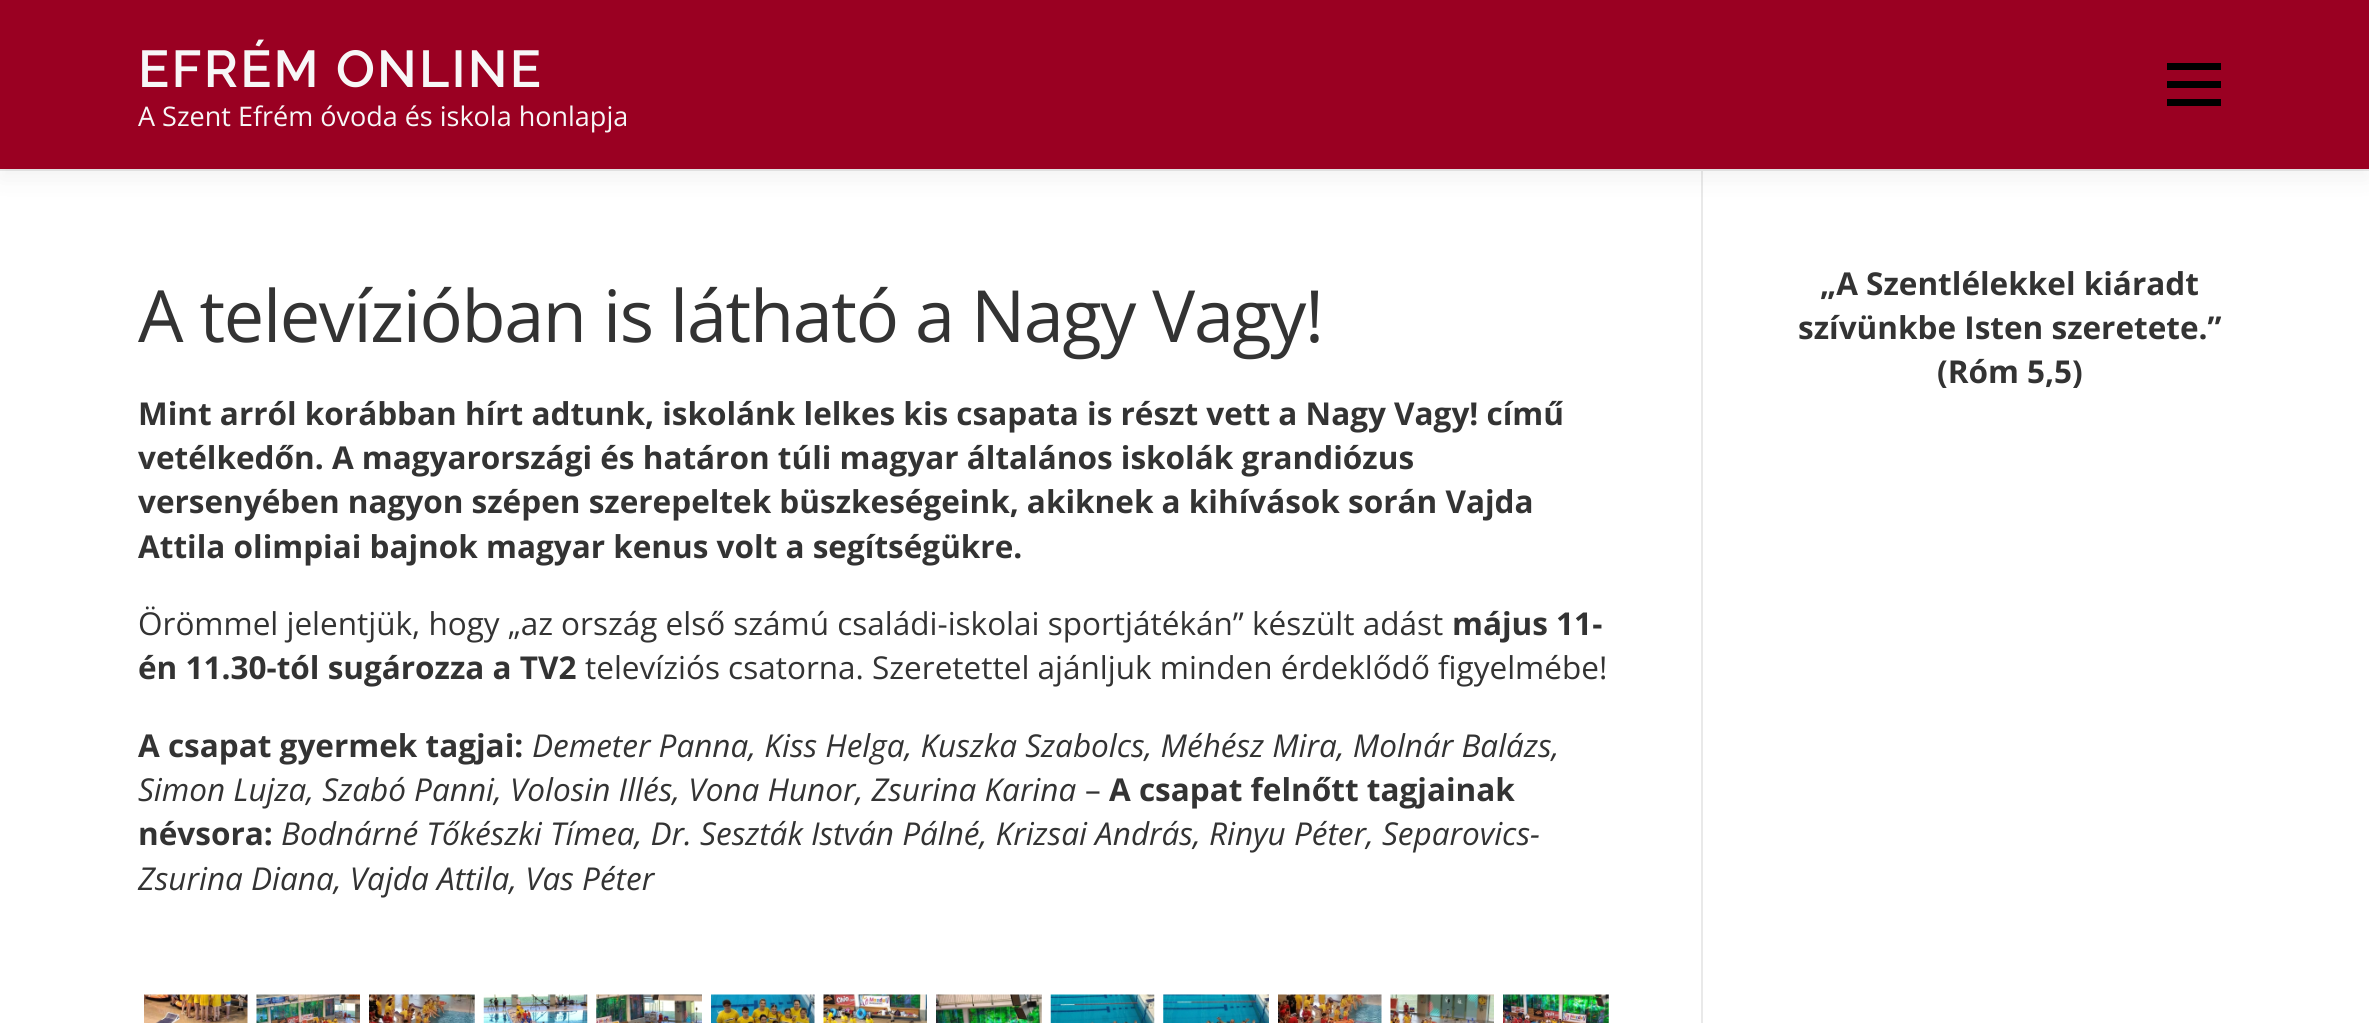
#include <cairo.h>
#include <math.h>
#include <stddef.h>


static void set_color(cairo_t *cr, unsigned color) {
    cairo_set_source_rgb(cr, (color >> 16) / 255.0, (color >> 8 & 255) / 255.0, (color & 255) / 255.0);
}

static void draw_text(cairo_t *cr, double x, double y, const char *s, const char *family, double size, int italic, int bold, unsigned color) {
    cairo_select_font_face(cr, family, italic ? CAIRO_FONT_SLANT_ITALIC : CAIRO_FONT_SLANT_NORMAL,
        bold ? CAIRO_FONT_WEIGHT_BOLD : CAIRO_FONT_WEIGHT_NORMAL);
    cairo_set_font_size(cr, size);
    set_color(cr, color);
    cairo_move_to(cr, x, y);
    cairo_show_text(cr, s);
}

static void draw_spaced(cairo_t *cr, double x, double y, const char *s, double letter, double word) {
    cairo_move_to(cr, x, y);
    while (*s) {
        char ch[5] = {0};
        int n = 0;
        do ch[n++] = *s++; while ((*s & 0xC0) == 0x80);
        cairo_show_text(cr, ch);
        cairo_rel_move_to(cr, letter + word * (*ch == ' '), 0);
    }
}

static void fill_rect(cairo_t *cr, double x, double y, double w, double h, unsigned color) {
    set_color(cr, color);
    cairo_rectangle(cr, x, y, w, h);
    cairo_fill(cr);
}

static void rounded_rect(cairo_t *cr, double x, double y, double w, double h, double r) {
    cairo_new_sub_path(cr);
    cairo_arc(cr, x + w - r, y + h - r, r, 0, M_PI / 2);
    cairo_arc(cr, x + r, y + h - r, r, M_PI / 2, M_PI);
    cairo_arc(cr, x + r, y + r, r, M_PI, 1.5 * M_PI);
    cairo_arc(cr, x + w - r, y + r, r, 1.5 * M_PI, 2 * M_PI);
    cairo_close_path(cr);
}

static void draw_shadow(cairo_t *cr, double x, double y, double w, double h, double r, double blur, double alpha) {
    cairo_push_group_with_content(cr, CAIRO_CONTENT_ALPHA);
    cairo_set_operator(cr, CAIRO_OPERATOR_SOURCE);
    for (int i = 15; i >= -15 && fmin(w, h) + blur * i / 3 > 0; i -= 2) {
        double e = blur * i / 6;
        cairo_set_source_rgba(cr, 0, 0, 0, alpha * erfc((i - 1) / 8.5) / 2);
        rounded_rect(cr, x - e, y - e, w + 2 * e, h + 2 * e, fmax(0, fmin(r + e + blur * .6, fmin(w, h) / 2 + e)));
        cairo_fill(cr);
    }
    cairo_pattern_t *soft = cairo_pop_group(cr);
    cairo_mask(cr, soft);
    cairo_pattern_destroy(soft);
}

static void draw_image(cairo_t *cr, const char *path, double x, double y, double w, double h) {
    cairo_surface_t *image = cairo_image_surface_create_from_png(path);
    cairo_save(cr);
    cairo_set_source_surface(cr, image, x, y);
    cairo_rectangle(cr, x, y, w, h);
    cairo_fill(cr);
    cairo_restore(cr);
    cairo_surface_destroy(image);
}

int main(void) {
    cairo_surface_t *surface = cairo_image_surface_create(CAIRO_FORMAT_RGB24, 2369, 1023);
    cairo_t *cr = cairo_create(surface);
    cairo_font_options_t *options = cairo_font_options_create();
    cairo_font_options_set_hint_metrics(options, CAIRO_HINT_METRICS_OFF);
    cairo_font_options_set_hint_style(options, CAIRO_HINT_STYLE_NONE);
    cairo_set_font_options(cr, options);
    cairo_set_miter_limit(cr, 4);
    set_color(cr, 0xFFFFFF);
    cairo_paint(cr);
    fill_rect(cr, 0, 169, 2369, 2, 0xE9E9E9);
    fill_rect(cr, 1701, 171, 2, 852, 0xE9E9E9);
    set_color(cr, 0x323232);
    draw_shadow(cr, 0, 11, 2369, 169, 0, 11, 0.06);
    fill_rect(cr, 0, 0, 2369, 169, 0x9A0022);
    cairo_select_font_face(cr, "Raleway SemiBold", CAIRO_FONT_SLANT_NORMAL, CAIRO_FONT_WEIGHT_NORMAL);
    cairo_set_font_size(cr, 51.75);
    set_color(cr, 0xF7F7F7);
    draw_spaced(cr, 138, 87, "EFRÉM ONLINE", 2.25, 0);
    draw_text(cr, 138, 126, "A Szent Efrém óvoda és iskola honlapja", "Open Sans", 27, 0, 0, 0xF7F7F7);
    fill_rect(cr, 2167, 81, 54, 7, 0x000000);
    fill_rect(cr, 2167, 63, 54, 7, 0x000000);
    fill_rect(cr, 2167, 99, 54, 7, 0x000000);
    cairo_set_font_size(cr, 72);
    set_color(cr, 0x333333);
    draw_spaced(cr, 138, 342, "A televízióban is látható a Nagy Vagy!", -1.35, 0);
    draw_text(cr, 138, 425, "Mint arról korábban hírt adtunk, iskolánk lelkes kis csapata is részt vett a Nagy Vagy! című", "Open Sans", 31.5, 0, 1, 0x333333);
    draw_text(cr, 138, 469, "vetélkedőn. A magyarországi és határon túli magyar általános iskolák grandiózus", "Open Sans", 31.5, 0, 1, 0x333333);
    draw_text(cr, 138, 513, "versenyében nagyon szépen szerepeltek büszkeségeink, akiknek a kihívások során Vajda", "Open Sans", 31.5, 0, 1, 0x333333);
    draw_text(cr, 138, 558, "Attila olimpiai bajnok magyar kenus volt a segítségükre.", "Open Sans", 31.5, 0, 1, 0x333333);
    draw_text(cr, 138, 635, "Örömmel jelentjük, hogy „az ország első számú családi-iskolai sportjátékán” készült adást", "Open Sans", 31.5, 0, 0, 0x333333);
    draw_text(cr, 1452, 635, "május 11-", "Open Sans", 31.5, 0, 1, 0x333333);
    draw_text(cr, 138, 679, "én 11.30-tól sugározza a TV2", "Open Sans", 31.5, 0, 1, 0x333333);
    draw_text(cr, 585, 679, "televíziós csatorna. Szeretettel ajánljuk minden érdeklődő figyelmébe!", "Open Sans", 31.5, 0, 0, 0x333333);
    draw_text(cr, 138, 757, "A csapat gyermek tagjai:", "Open Sans", 31.5, 0, 1, 0x333333);
    draw_text(cr, 532, 757, "Demeter Panna, Kiss Helga, Kuszka Szabolcs, Méhész Mira, Molnár Balázs,", "Open Sans", 31.5, 1, 0, 0x333333);
    draw_text(cr, 138, 801, "Simon Lujza, Szabó Panni, Volosin Illés, Vona Hunor, Zsurina Karina", "Open Sans", 31.5, 1, 0, 0x333333);
    draw_text(cr, 1085, 801, "–", "Open Sans", 31.5, 0, 0, 0x333333);
    draw_text(cr, 1109, 801, "A csapat felnőtt tagjainak", "Open Sans", 31.5, 0, 1, 0x333333);
    draw_text(cr, 138, 845, "névsora:", "Open Sans", 31.5, 0, 1, 0x333333);
    draw_text(cr, 281, 845, "Bodnárné Tőkészki Tímea, Dr. Seszták István Pálné, Krizsai András, Rinyu Péter, Separovics-", "Open Sans", 31.5, 1, 0, 0x333333);
    draw_text(cr, 138, 890, "Zsurina Diana, Vajda Attila, Vas Péter", "Open Sans", 31.5, 1, 0, 0x333333);
    draw_image(cr, "assets/img1.png", 144, 994, 104, 29);
    draw_image(cr, "assets/img2.png", 256, 994, 104, 29);
    draw_image(cr, "assets/img3.png", 369, 994, 106, 29);
    draw_image(cr, "assets/img4.png", 483, 994, 105, 29);
    draw_image(cr, "assets/img5.png", 596, 994, 106, 29);
    draw_image(cr, "assets/img6.png", 711, 994, 104, 29);
    draw_image(cr, "assets/img7.png", 823, 994, 104, 29);
    draw_image(cr, "assets/img8.png", 936, 994, 106, 29);
    draw_image(cr, "assets/img9.png", 1050, 994, 105, 29);
    draw_image(cr, "assets/img10.png", 1163, 994, 106, 29);
    draw_image(cr, "assets/img11.png", 1278, 994, 104, 29);
    draw_image(cr, "assets/img12.png", 1390, 994, 104, 29);
    draw_image(cr, "assets/img13.png", 1503, 994, 106, 29);
    draw_text(cr, 1820, 295, "„A Szentlélekkel kiáradt", "Open Sans", 31.5, 0, 1, 0x333333);
    draw_text(cr, 1798, 339, "szívünkbe Isten szeretete.”", "Open Sans", 31.5, 0, 1, 0x333333);
    draw_text(cr, 1937, 383, "(Róm 5,5)", "Open Sans", 31.5, 0, 1, 0x333333);
    cairo_surface_write_to_png(surface, "output.png");
    cairo_font_options_destroy(options);
    cairo_destroy(cr);
    cairo_surface_destroy(surface);
    return 0;
}
